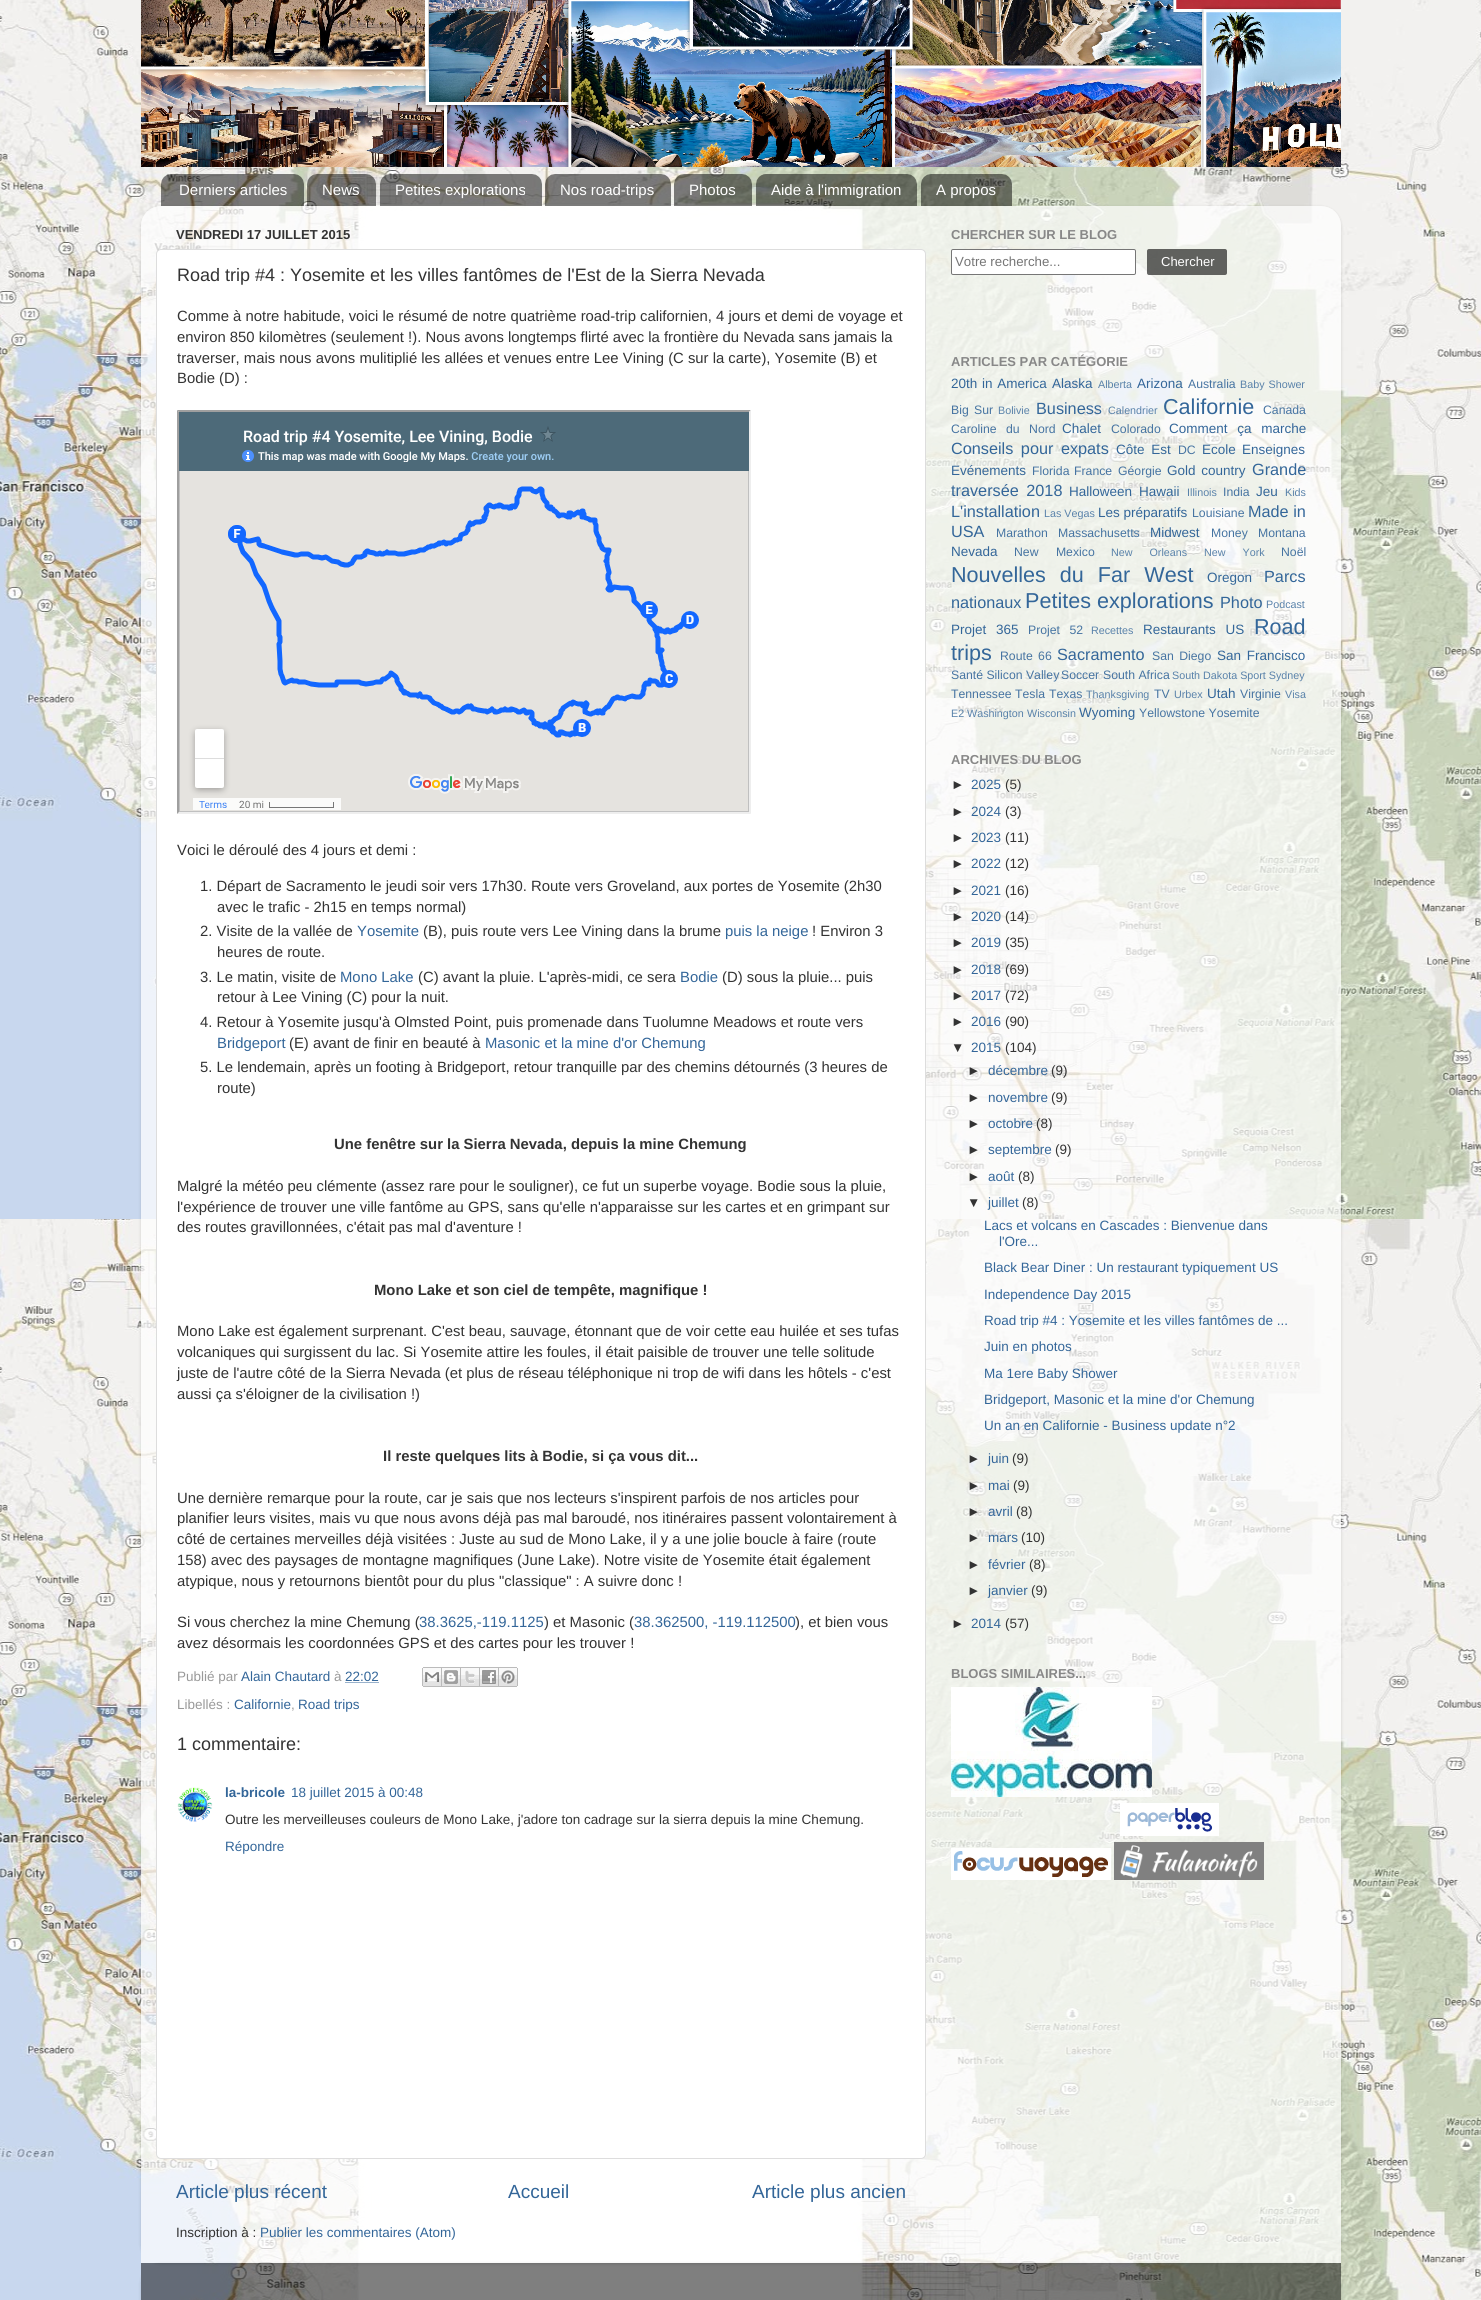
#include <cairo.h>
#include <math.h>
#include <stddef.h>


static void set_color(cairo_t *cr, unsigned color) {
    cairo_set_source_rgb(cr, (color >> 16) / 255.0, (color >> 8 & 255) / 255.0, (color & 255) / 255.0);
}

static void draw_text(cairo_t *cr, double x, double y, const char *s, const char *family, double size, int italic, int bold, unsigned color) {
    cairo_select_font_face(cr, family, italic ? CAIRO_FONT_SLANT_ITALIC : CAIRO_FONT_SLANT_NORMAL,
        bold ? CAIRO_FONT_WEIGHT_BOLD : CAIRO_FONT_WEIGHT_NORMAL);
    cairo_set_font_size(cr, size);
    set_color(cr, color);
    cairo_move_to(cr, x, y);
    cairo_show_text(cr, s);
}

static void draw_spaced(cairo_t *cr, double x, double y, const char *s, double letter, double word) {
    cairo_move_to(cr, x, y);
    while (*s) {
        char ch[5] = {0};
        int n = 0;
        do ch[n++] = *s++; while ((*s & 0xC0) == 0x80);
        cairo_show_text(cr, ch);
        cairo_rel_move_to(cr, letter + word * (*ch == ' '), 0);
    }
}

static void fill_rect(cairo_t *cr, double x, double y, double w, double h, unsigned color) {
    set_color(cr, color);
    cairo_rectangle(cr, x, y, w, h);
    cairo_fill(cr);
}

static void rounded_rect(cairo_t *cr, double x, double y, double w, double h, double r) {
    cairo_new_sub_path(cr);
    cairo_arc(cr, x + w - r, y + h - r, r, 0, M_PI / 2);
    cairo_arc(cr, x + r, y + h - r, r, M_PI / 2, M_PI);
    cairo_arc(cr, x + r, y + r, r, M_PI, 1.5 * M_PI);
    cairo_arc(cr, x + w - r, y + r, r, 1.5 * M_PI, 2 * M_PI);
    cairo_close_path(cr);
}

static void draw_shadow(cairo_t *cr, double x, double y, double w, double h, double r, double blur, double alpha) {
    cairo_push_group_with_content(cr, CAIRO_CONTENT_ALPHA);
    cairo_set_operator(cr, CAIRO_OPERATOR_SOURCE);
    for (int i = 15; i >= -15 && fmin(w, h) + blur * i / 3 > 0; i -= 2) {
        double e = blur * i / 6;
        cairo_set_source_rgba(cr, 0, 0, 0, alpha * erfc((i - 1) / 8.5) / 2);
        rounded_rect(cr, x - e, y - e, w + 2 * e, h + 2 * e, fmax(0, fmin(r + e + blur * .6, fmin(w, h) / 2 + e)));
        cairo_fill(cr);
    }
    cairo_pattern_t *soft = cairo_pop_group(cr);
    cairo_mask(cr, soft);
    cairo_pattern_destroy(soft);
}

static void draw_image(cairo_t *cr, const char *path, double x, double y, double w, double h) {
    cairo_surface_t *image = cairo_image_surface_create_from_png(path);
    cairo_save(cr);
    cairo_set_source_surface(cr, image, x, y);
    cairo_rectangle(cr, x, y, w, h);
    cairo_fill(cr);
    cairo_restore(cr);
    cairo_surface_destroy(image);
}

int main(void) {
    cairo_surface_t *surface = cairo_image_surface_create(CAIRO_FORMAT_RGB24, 1481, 2300);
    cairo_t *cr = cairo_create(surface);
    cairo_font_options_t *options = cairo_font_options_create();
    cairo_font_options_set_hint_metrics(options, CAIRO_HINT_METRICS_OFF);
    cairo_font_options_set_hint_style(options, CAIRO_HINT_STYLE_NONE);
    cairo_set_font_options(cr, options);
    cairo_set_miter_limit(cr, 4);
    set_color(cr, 0xFFFFFF);
    cairo_paint(cr);
    draw_image(cr, "assets/img1.png", 0, 0, 1481, 2300);
    draw_image(cr, "assets/img2.png", 141, 0, 1200, 167);
    draw_image(cr, "assets/img3.png", 161, 174, 143, 32);
    draw_text(cr, 179, 195, "Derniers articles", "Liberation Sans", 15, 0, 0, 0xFFFFFF);
    draw_image(cr, "assets/img4.png", 307, 174, 69, 32);
    draw_text(cr, 322, 195, "News", "Liberation Sans", 15, 0, 0, 0xFFFFFF);
    draw_image(cr, "assets/img5.png", 380, 174, 162, 32);
    draw_text(cr, 395, 195, "Petites explorations", "Liberation Sans", 15, 0, 0, 0xFFFFFF);
    draw_image(cr, "assets/img6.png", 545, 174, 126, 32);
    draw_text(cr, 560, 195, "Nos road-trips", "Liberation Sans", 15, 0, 0, 0xFFFFFF);
    draw_image(cr, "assets/img7.png", 674, 174, 78, 32);
    draw_text(cr, 689, 195, "Photos", "Liberation Sans", 15, 0, 0, 0xFFFFFF);
    draw_image(cr, "assets/img8.png", 756, 174, 161, 32);
    draw_text(cr, 771, 195, "Aide à l'immigration", "Liberation Sans", 15, 0, 0, 0xFFFFFF);
    draw_image(cr, "assets/img9.png", 921, 174, 91, 32);
    draw_text(cr, 936, 195, "A propos", "Liberation Sans", 15, 0, 0, 0xFFFFFF);
    cairo_save(cr);
    cairo_set_fill_rule(cr, CAIRO_FILL_RULE_EVEN_ODD);
    cairo_new_path(cr);
    cairo_move_to(cr, 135, 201);
    cairo_line_to(cr, 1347, 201);
    cairo_line_to(cr, 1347, 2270);
    cairo_line_to(cr, 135, 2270);
    cairo_close_path(cr);
    cairo_move_to(cr, 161, 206);
    cairo_line_to(cr, 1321, 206);
    cairo_curve_to(cr, 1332, 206, 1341, 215, 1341, 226);
    cairo_line_to(cr, 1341, 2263);
    cairo_line_to(cr, 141, 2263);
    cairo_line_to(cr, 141, 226);
    cairo_curve_to(cr, 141, 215, 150, 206, 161, 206);
    cairo_close_path(cr);
    cairo_clip(cr);
    set_color(cr, 0x000000);
    draw_shadow(cr, 141, 207, 1200, 2057, 20, 1.5, 0.15);
    cairo_restore(cr);
    draw_image(cr, "assets/img10.png", 141, 206, 1200, 2057);
    draw_text(cr, 176, 239, "VENDREDI 17 JUILLET 2015", "Liberation Sans", 13, 0, 1, 0x333333);
    set_color(cr, 0xFFFFFF);
    rounded_rect(cr, 156.5, 249.5, 769, 1909, 4.5);
    cairo_fill_preserve(cr);
    set_color(cr, 0xDDDDDD);
    cairo_set_line_width(cr, 1);
    cairo_stroke(cr);
    draw_text(cr, 177, 281, "Road trip #4 : Yosemite et les villes fantômes de l'Est de la Sierra Nevada", "Liberation Sans", 18, 0, 0, 0x333333);
    draw_text(cr, 177, 321, "Comme à notre habitude, voici le résumé de notre quatrième road-trip californien, 4 jours et demi de voyage et", "Liberation Sans", 14.85, 0, 0, 0x333333);
    draw_text(cr, 177, 342, "environ 850 kilomètres (seulement !). Nous avons longtemps flirté avec la frontière du Nevada sans jamais la", "Liberation Sans", 14.85, 0, 0, 0x333333);
    draw_text(cr, 177, 363, "traverser, mais nous avons mulitiplié les allées et venues entre Lee Vining (C sur la carte), Yosemite (B) et", "Liberation Sans", 14.85, 0, 0, 0x333333);
    draw_text(cr, 177, 383, "Bodie (D) :", "Liberation Sans", 14.85, 0, 0, 0x333333);
    set_color(cr, 0x9F9F9F);
    cairo_new_path(cr);
    cairo_move_to(cr, 177, 410);
    cairo_line_to(cr, 751, 410);
    cairo_line_to(cr, 749, 412);
    cairo_line_to(cr, 179, 412);
    cairo_close_path(cr);
    cairo_fill(cr);
    set_color(cr, 0xEEEEEE);
    cairo_new_path(cr);
    cairo_move_to(cr, 751, 410);
    cairo_line_to(cr, 751, 814);
    cairo_line_to(cr, 749, 812);
    cairo_line_to(cr, 749, 412);
    cairo_close_path(cr);
    cairo_fill(cr);
    cairo_new_path(cr);
    cairo_move_to(cr, 751, 814);
    cairo_line_to(cr, 177, 814);
    cairo_line_to(cr, 179, 812);
    cairo_line_to(cr, 749, 812);
    cairo_close_path(cr);
    cairo_fill(cr);
    set_color(cr, 0x9F9F9F);
    cairo_new_path(cr);
    cairo_move_to(cr, 177, 814);
    cairo_line_to(cr, 177, 410);
    cairo_line_to(cr, 179, 412);
    cairo_line_to(cr, 179, 812);
    cairo_close_path(cr);
    cairo_fill(cr);
    draw_image(cr, "assets/img11.png", 179, 412, 570, 400);
    draw_text(cr, 177, 855, "Voici le déroulé des 4 jours et demi :", "Liberation Sans", 14.85, 0, 0, 0x333333);
    draw_text(cr, 200, 891, "1. Départ de Sacramento le jeudi soir vers 17h30. Route vers Groveland, aux portes de Yosemite (2h30", "Liberation Sans", 14.85, 0, 0, 0x333333);
    draw_text(cr, 217, 912, "avec le trafic - 2h15 en temps normal)", "Liberation Sans", 14.85, 0, 0, 0x333333);
    draw_text(cr, 200, 936, "2. Visite de la vallée de", "Liberation Sans", 14.85, 0, 0, 0x333333);
    draw_text(cr, 357, 936, "Yosemite", "Liberation Sans", 14.85, 0, 0, 0x336699);
    draw_text(cr, 423, 936, "(B), puis route vers Lee Vining dans la brume", "Liberation Sans", 14.85, 0, 0, 0x333333);
    draw_text(cr, 725, 936, "puis la neige", "Liberation Sans", 14.85, 0, 0, 0x336699);
    draw_text(cr, 812, 936, "! Environ 3", "Liberation Sans", 14.85, 0, 0, 0x333333);
    draw_text(cr, 217, 957, "heures de route.", "Liberation Sans", 14.85, 0, 0, 0x333333);
    draw_text(cr, 200, 982, "3. Le matin, visite de", "Liberation Sans", 14.85, 0, 0, 0x333333);
    draw_text(cr, 340, 982, "Mono Lake", "Liberation Sans", 14.85, 0, 0, 0x336699);
    draw_text(cr, 418, 982, "(C) avant la pluie. L'après-midi, ce sera", "Liberation Sans", 14.85, 0, 0, 0x333333);
    draw_text(cr, 680, 982, "Bodie", "Liberation Sans", 14.85, 0, 0, 0x336699);
    draw_text(cr, 722, 982, "(D) sous la pluie... puis", "Liberation Sans", 14.85, 0, 0, 0x333333);
    draw_text(cr, 217, 1002, "retour à Lee Vining (C) pour la nuit.", "Liberation Sans", 14.85, 0, 0, 0x333333);
    draw_text(cr, 200, 1027, "4. Retour à Yosemite jusqu'à Olmsted Point, puis promenade dans Tuolumne Meadows et route vers", "Liberation Sans", 14.85, 0, 0, 0x333333);
    draw_text(cr, 217, 1048, "Bridgeport", "Liberation Sans", 14.85, 0, 0, 0x336699);
    draw_text(cr, 289, 1048, "(E) avant de finir en beauté à", "Liberation Sans", 14.85, 0, 0, 0x333333);
    draw_text(cr, 485, 1048, "Masonic et la mine d'or Chemung", "Liberation Sans", 14.85, 0, 0, 0x336699);
    draw_text(cr, 200, 1072, "5. Le lendemain, après un footing à Bridgeport, retour tranquille par des chemins détournés (3 heures de", "Liberation Sans", 14.85, 0, 0, 0x333333);
    draw_text(cr, 217, 1093, "route)", "Liberation Sans", 14.85, 0, 0, 0x333333);
    draw_text(cr, 334, 1149, "Une fenêtre sur la Sierra Nevada, depuis la mine Chemung", "Liberation Sans", 14.85, 0, 1, 0x333333);
    draw_text(cr, 177, 1191, "Malgré la météo peu clémente (assez rare pour le souligner), ce fut un superbe voyage. Bodie sous la pluie,", "Liberation Sans", 14.85, 0, 0, 0x333333);
    draw_text(cr, 177, 1212, "l'expérience de trouver une ville fantôme au GPS, sans qu'elle n'apparaisse sur les cartes et en grimpant sur", "Liberation Sans", 14.85, 0, 0, 0x333333);
    draw_text(cr, 177, 1232, "des routes gravillonnées, c'était pas mal d'aventure !", "Liberation Sans", 14.85, 0, 0, 0x333333);
    draw_text(cr, 374, 1295, "Mono Lake et son ciel de tempête, magnifique !", "Liberation Sans", 14.85, 0, 1, 0x333333);
    draw_text(cr, 177, 1336, "Mono Lake est également surprenant. C'est beau, sauvage, étonnant que de voir cette eau huilée et ses tufas", "Liberation Sans", 14.85, 0, 0, 0x333333);
    draw_text(cr, 177, 1357, "volcaniques qui surgissent du lac. Si Yosemite attire les foules, il était paisible de trouver une telle solitude", "Liberation Sans", 14.85, 0, 0, 0x333333);
    draw_text(cr, 177, 1378, "juste de l'autre côté de la Sierra Nevada (et plus de réseau téléphonique ni trop de wifi dans les hôtels - c'est", "Liberation Sans", 14.85, 0, 0, 0x333333);
    draw_text(cr, 177, 1399, "aussi ça s'éloigner de la civilisation !)", "Liberation Sans", 14.85, 0, 0, 0x333333);
    draw_text(cr, 383, 1461, "Il reste quelques lits à Bodie, si ça vous dit...", "Liberation Sans", 14.85, 0, 1, 0x333333);
    draw_text(cr, 177, 1503, "Une dernière remarque pour la route, car je sais que nos lecteurs s'inspirent parfois de nos articles pour", "Liberation Sans", 14.85, 0, 0, 0x333333);
    draw_text(cr, 177, 1523, "planifier leurs visites, mais vu que nous avons déjà pas mal baroudé, nos itinéraires passent volontairement à", "Liberation Sans", 14.85, 0, 0, 0x333333);
    draw_text(cr, 177, 1544, "côté de certaines merveilles déjà visitées : Juste au sud de Mono Lake, il y a une jolie boucle à faire (route", "Liberation Sans", 14.85, 0, 0, 0x333333);
    draw_text(cr, 177, 1565, "158) avec des paysages de montagne magnifiques (June Lake). Notre visite de Yosemite était également", "Liberation Sans", 14.85, 0, 0, 0x333333);
    draw_text(cr, 177, 1586, "atypique, nous y retournons bientôt pour du plus \"classique\" : A suivre donc !", "Liberation Sans", 14.85, 0, 0, 0x333333);
    draw_text(cr, 177, 1627, "Si vous cherchez la mine Chemung (", "Liberation Sans", 14.85, 0, 0, 0x333333);
    draw_text(cr, 419, 1627, "38.3625,-119.1125", "Liberation Sans", 14.85, 0, 0, 0x336699);
    draw_text(cr, 544, 1627, ") et Masonic (", "Liberation Sans", 14.85, 0, 0, 0x333333);
    draw_text(cr, 634, 1627, "38.362500, -119.112500", "Liberation Sans", 14.85, 0, 0, 0x336699);
    draw_text(cr, 795, 1627, "), et bien vous", "Liberation Sans", 14.85, 0, 0, 0x333333);
    draw_text(cr, 177, 1648, "avez désormais les coordonnées GPS et des cartes pour les trouver !", "Liberation Sans", 14.85, 0, 0, 0x333333);
    draw_text(cr, 177, 1681, "Publié par", "Liberation Sans", 13.5, 0, 0, 0x999999);
    draw_text(cr, 241, 1681, "Alain Chautard", "Liberation Sans", 13.5, 0, 0, 0x336699);
    draw_text(cr, 334, 1681, "à", "Liberation Sans", 13.5, 0, 0, 0x999999);
    draw_text(cr, 345, 1681, "22:02", "Liberation Sans", 13.5, 0, 0, 0x336699);
    cairo_new_path(cr);
    cairo_move_to(cr, 345.5, 1682.5);
    cairo_line_to(cr, 379, 1682.5);
    cairo_set_dash(cr, (double[]){1, 1}, 2, 0);
    cairo_stroke(cr);
    draw_image(cr, "assets/img12.png", 422, 1667, 20, 20);
    draw_image(cr, "assets/img13.png", 442, 1667, 19, 20);
    draw_image(cr, "assets/img14.png", 461, 1667, 19, 20);
    draw_image(cr, "assets/img15.png", 480, 1667, 19, 20);
    draw_image(cr, "assets/img16.png", 499, 1667, 19, 20);
    draw_text(cr, 177, 1709, "Libellés :", "Liberation Sans", 13.5, 0, 0, 0x999999);
    draw_text(cr, 234, 1709, "Californie", "Liberation Sans", 13.5, 0, 0, 0x336699);
    draw_text(cr, 291, 1709, ",", "Liberation Sans", 13.5, 0, 0, 0x999999);
    draw_text(cr, 298, 1709, "Road trips", "Liberation Sans", 13.5, 0, 0, 0x336699);
    draw_text(cr, 177, 1750, "1 commentaire:", "Liberation Sans", 18, 0, 0, 0x333333);
    draw_image(cr, "assets/img17.png", 177, 1787, 36, 35);
    draw_text(cr, 225, 1797, "la-bricole", "Liberation Sans", 13.5, 0, 1, 0x336699);
    draw_text(cr, 291, 1797, "18 juillet 2015 à 00:48", "Liberation Sans", 13.5, 0, 0, 0x336699);
    draw_text(cr, 225, 1824, "Outre les merveilleuses couleurs de Mono Lake, j'adore ton cadrage sur la sierra depuis la mine Chemung.", "Liberation Sans", 13.5, 0, 0, 0x333333);
    draw_text(cr, 225, 1851, "Répondre", "Liberation Sans", 13.5, 0, 0, 0x336699);
    draw_text(cr, 176, 2198, "Article plus récent", "Liberation Sans", 19, 0, 0, 0x336699);
    draw_text(cr, 508, 2198, "Accueil", "Liberation Sans", 19, 0, 0, 0x336699);
    draw_text(cr, 752, 2198, "Article plus ancien", "Liberation Sans", 19, 0, 0, 0x336699);
    draw_text(cr, 176, 2237, "Inscription à :", "Liberation Sans", 13.5, 0, 0, 0x333333);
    draw_text(cr, 260, 2237, "Publier les commentaires (Atom)", "Liberation Sans", 13.5, 0, 0, 0x336699);
    draw_text(cr, 951, 239, "CHERCHER SUR LE BLOG", "Liberation Sans", 13, 0, 1, 0x888888);
    set_color(cr, 0xFFFFFF);
    rounded_rect(cr, 951.5, 249.5, 184, 25, 1.5);
    cairo_fill_preserve(cr);
    set_color(cr, 0x767676);
    cairo_set_dash(cr, NULL, 0, 0);
    cairo_stroke(cr);
    draw_text(cr, 955, 266, "Votre recherche...", "Liberation Sans", 13.25, 0, 0, 0x757575);
    cairo_set_source_rgba(cr, 0, 0, 0, 0.6);
    rounded_rect(cr, 1147, 249, 80, 26, 2);
    cairo_fill(cr);
    draw_text(cr, 1161, 266, "Chercher", "Liberation Sans", 13, 0, 0, 0xFFFFFF);
    draw_text(cr, 951, 366, "ARTICLES PAR CATÉGORIE", "Liberation Sans", 13, 0, 1, 0x888888);
    cairo_select_font_face(cr, "Liberation Sans", CAIRO_FONT_SLANT_NORMAL, CAIRO_FONT_WEIGHT_NORMAL);
    cairo_set_font_size(cr, 13.5);
    set_color(cr, 0x336699);
    draw_spaced(cr, 951, 388, "20th in America", 0, 1);
    draw_text(cr, 1052, 388, "Alaska", "Liberation Sans", 13.5, 0, 0, 0x336699);
    draw_text(cr, 1098, 388, "Alberta", "Liberation Sans", 10.75, 0, 0, 0x5982AA);
    draw_text(cr, 1137, 388, "Arizona", "Liberation Sans", 13.5, 0, 0, 0x336699);
    draw_text(cr, 1188, 388, "Australia", "Liberation Sans", 12.25, 0, 0, 0x4674A2);
    cairo_set_font_size(cr, 10.75);
    set_color(cr, 0x5982AA);
    draw_spaced(cr, 1240, 388, "Baby Shower", 0, 1);
    cairo_set_font_size(cr, 12.25);
    set_color(cr, 0x4674A2);
    draw_spaced(cr, 951, 414, "Big Sur", 0, 2);
    draw_text(cr, 998, 414, "Bolivie", "Liberation Sans", 10.75, 0, 0, 0x5982AA);
    draw_text(cr, 1036, 414, "Business", "Liberation Sans", 16.25, 0, 0, 0x336699);
    draw_text(cr, 1108, 414, "Calendrier", "Liberation Sans", 10.75, 0, 0, 0x5982AA);
    draw_text(cr, 1163, 414, "Californie", "Liberation Sans", 21.6, 0, 0, 0x336699);
    draw_text(cr, 1263, 414, "Canada", "Liberation Sans", 12.25, 0, 0, 0x4674A2);
    draw_spaced(cr, 951, 433, "Caroline du Nord", 0, 6);
    draw_text(cr, 1062, 433, "Chalet", "Liberation Sans", 13.5, 0, 0, 0x336699);
    draw_text(cr, 1111, 433, "Colorado", "Liberation Sans", 12.25, 0, 0, 0x4674A2);
    cairo_set_font_size(cr, 13.5);
    set_color(cr, 0x336699);
    draw_spaced(cr, 1169, 433, "Comment ça marche", 0, 6);
    cairo_set_font_size(cr, 16.25);
    draw_spaced(cr, 951, 454, "Conseils pour expats", 0, 3);
    cairo_set_font_size(cr, 13.5);
    draw_spaced(cr, 1116, 454, "Côte Est", 0, 3);
    draw_text(cr, 1178, 454, "DC", "Liberation Sans", 12.25, 0, 0, 0x4674A2);
    draw_text(cr, 1202, 454, "Ecole", "Liberation Sans", 13.5, 0, 0, 0x336699);
    draw_text(cr, 1242, 454, "Enseignes", "Liberation Sans", 13.5, 0, 0, 0x336699);
    draw_text(cr, 951, 475, "Evénements", "Liberation Sans", 13.5, 0, 0, 0x336699);
    draw_text(cr, 1032, 475, "Florida", "Liberation Sans", 12.25, 0, 0, 0x4674A2);
    draw_text(cr, 1074, 475, "France", "Liberation Sans", 12.25, 0, 0, 0x4674A2);
    draw_text(cr, 1118, 475, "Géorgie", "Liberation Sans", 12.25, 0, 0, 0x4674A2);
    cairo_set_font_size(cr, 13.5);
    set_color(cr, 0x336699);
    draw_spaced(cr, 1167, 475, "Gold country", 0, 2);
    draw_text(cr, 1252, 475, "Grande", "Liberation Sans", 16.25, 0, 0, 0x336699);
    draw_spaced(cr, 951, 496, "traversée 2018", 0, 3);
    draw_text(cr, 1069, 496, "Halloween", "Liberation Sans", 13.5, 0, 0, 0x336699);
    draw_text(cr, 1139, 496, "Hawaii", "Liberation Sans", 13.5, 0, 0, 0x336699);
    draw_text(cr, 1187, 496, "Illinois", "Liberation Sans", 10.75, 0, 0, 0x5982AA);
    draw_text(cr, 1223, 496, "India", "Liberation Sans", 12.25, 0, 0, 0x4674A2);
    draw_text(cr, 1256, 496, "Jeu", "Liberation Sans", 13.5, 0, 0, 0x336699);
    draw_text(cr, 1285, 496, "Kids", "Liberation Sans", 10.75, 0, 0, 0x5982AA);
    draw_text(cr, 951, 517, "L'installation", "Liberation Sans", 16.25, 0, 0, 0x336699);
    draw_text(cr, 1044, 517, "Las Vegas", "Liberation Sans", 10.75, 0, 0, 0x5982AA);
    draw_text(cr, 1098, 517, "Les préparatifs", "Liberation Sans", 13.5, 0, 0, 0x336699);
    draw_text(cr, 1192, 517, "Louisiane", "Liberation Sans", 12.25, 0, 0, 0x4674A2);
    draw_text(cr, 1248, 517, "Made in", "Liberation Sans", 16.25, 0, 0, 0x336699);
    draw_text(cr, 951, 537, "USA", "Liberation Sans", 16.25, 0, 0, 0x336699);
    draw_text(cr, 996, 537, "Marathon", "Liberation Sans", 12.25, 0, 0, 0x4674A2);
    draw_text(cr, 1058, 537, "Massachusetts", "Liberation Sans", 12.25, 0, 0, 0x4674A2);
    draw_text(cr, 1150, 537, "Midwest", "Liberation Sans", 13.5, 0, 0, 0x336699);
    draw_text(cr, 1211, 537, "Money", "Liberation Sans", 12.25, 0, 0, 0x4674A2);
    draw_text(cr, 1258, 537, "Montana", "Liberation Sans", 12.25, 0, 0, 0x4674A2);
    draw_text(cr, 951, 556, "Nevada", "Liberation Sans", 13.5, 0, 0, 0x336699);
    cairo_set_font_size(cr, 12.25);
    set_color(cr, 0x4674A2);
    draw_spaced(cr, 1014, 556, "New Mexico", 0, 14);
    cairo_set_font_size(cr, 10.75);
    set_color(cr, 0x5982AA);
    draw_spaced(cr, 1111, 556, "New Orleans", 0, 14);
    draw_spaced(cr, 1204, 556, "New York", 0, 14);
    draw_text(cr, 1281, 556, "Noël", "Liberation Sans", 12.25, 0, 0, 0x4674A2);
    cairo_set_font_size(cr, 21.6);
    set_color(cr, 0x336699);
    draw_spaced(cr, 951, 582, "Nouvelles du Far West", 0, 8);
    draw_text(cr, 1207, 582, "Oregon", "Liberation Sans", 13.5, 0, 0, 0x336699);
    draw_text(cr, 1264, 582, "Parcs", "Liberation Sans", 16.25, 0, 0, 0x336699);
    draw_text(cr, 951, 608, "nationaux", "Liberation Sans", 16.25, 0, 0, 0x336699);
    draw_text(cr, 1025, 608, "Petites explorations", "Liberation Sans", 21.6, 0, 0, 0x336699);
    draw_text(cr, 1220, 608, "Photo", "Liberation Sans", 16.25, 0, 0, 0x336699);
    draw_text(cr, 1266, 608, "Podcast", "Liberation Sans", 10.75, 0, 0, 0x5982AA);
    cairo_set_font_size(cr, 13.5);
    set_color(cr, 0x336699);
    draw_spaced(cr, 951, 634, "Projet 365", 0, 6);
    cairo_set_font_size(cr, 12.25);
    set_color(cr, 0x4674A2);
    draw_spaced(cr, 1028, 634, "Projet 52", 0, 6);
    draw_text(cr, 1091, 634, "Recettes", "Liberation Sans", 10.75, 0, 0, 0x5982AA);
    cairo_set_font_size(cr, 13.5);
    set_color(cr, 0x336699);
    draw_spaced(cr, 1143, 634, "Restaurants US", 0, 6);
    draw_text(cr, 1254, 634, "Road", "Liberation Sans", 21.6, 0, 0, 0x336699);
    draw_text(cr, 951, 660, "trips", "Liberation Sans", 21.6, 0, 0, 0x336699);
    cairo_set_font_size(cr, 12.25);
    set_color(cr, 0x4674A2);
    draw_spaced(cr, 1000, 660, "Route 66", 0, 2);
    draw_text(cr, 1057, 660, "Sacramento", "Liberation Sans", 16.25, 0, 0, 0x336699);
    cairo_set_font_size(cr, 12.25);
    set_color(cr, 0x4674A2);
    draw_spaced(cr, 1152, 660, "San Diego", 0, 2);
    cairo_set_font_size(cr, 13.5);
    set_color(cr, 0x336699);
    draw_spaced(cr, 1217, 660, "San Francisco", 0, 2);
    draw_text(cr, 951, 679, "Santé Silicon Valley", "Liberation Sans", 12.25, 0, 0, 0x4674A2);
    draw_text(cr, 1061, 679, "Soccer", "Liberation Sans", 12.25, 0, 0, 0x4674A2);
    draw_text(cr, 1103, 679, "South Africa", "Liberation Sans", 12.25, 0, 0, 0x4674A2);
    draw_text(cr, 1172, 679, "South Dakota Sport Sydney", "Liberation Sans", 10.75, 0, 0, 0x5982AA);
    draw_text(cr, 951, 698, "Tennessee", "Liberation Sans", 12.25, 0, 0, 0x4674A2);
    draw_text(cr, 1015, 698, "Tesla", "Liberation Sans", 12.25, 0, 0, 0x4674A2);
    draw_text(cr, 1049, 698, "Texas", "Liberation Sans", 12.25, 0, 0, 0x4674A2);
    draw_text(cr, 1086, 698, "Thanksgiving", "Liberation Sans", 10.75, 0, 0, 0x5982AA);
    draw_text(cr, 1154, 698, "TV", "Liberation Sans", 12.25, 0, 0, 0x4674A2);
    draw_text(cr, 1174, 698, "Urbex", "Liberation Sans", 10.75, 0, 0, 0x5982AA);
    draw_text(cr, 1207, 698, "Utah", "Liberation Sans", 13.5, 0, 0, 0x336699);
    draw_text(cr, 1240, 698, "Virginie", "Liberation Sans", 12.25, 0, 0, 0x4674A2);
    draw_text(cr, 1285, 698, "Visa", "Liberation Sans", 10.75, 0, 0, 0x5982AA);
    draw_text(cr, 951, 717, "E2", "Liberation Sans", 10.75, 0, 0, 0x5982AA);
    draw_text(cr, 967, 717, "Washington", "Liberation Sans", 10.75, 0, 0, 0x5982AA);
    draw_text(cr, 1027, 717, "Wisconsin", "Liberation Sans", 10.75, 0, 0, 0x5982AA);
    draw_text(cr, 1079, 717, "Wyoming", "Liberation Sans", 13.5, 0, 0, 0x336699);
    draw_text(cr, 1139, 717, "Yellowstone Yosemite", "Liberation Sans", 12.25, 0, 0, 0x4674A2);
    draw_text(cr, 951, 764, "ARCHIVES DU BLOG", "Liberation Sans", 13, 0, 1, 0x888888);
    draw_text(cr, 951, 789, "►", "Liberation Sans", 13.5, 0, 0, 0x333333);
    draw_text(cr, 971, 789, "2025", "Liberation Sans", 13.5, 0, 0, 0x336699);
    draw_text(cr, 1005, 789, "(5)", "Liberation Sans", 13.5, 0, 0, 0x333333);
    draw_text(cr, 951, 816, "►", "Liberation Sans", 13.5, 0, 0, 0x333333);
    draw_text(cr, 971, 816, "2024", "Liberation Sans", 13.5, 0, 0, 0x336699);
    draw_text(cr, 1005, 816, "(3)", "Liberation Sans", 13.5, 0, 0, 0x333333);
    draw_text(cr, 951, 842, "►", "Liberation Sans", 13.5, 0, 0, 0x333333);
    draw_text(cr, 971, 842, "2023", "Liberation Sans", 13.5, 0, 0, 0x336699);
    draw_text(cr, 1005, 842, "(11)", "Liberation Sans", 13.5, 0, 0, 0x333333);
    draw_text(cr, 951, 868, "►", "Liberation Sans", 13.5, 0, 0, 0x333333);
    draw_text(cr, 971, 868, "2022", "Liberation Sans", 13.5, 0, 0, 0x336699);
    draw_text(cr, 1005, 868, "(12)", "Liberation Sans", 13.5, 0, 0, 0x333333);
    draw_text(cr, 951, 895, "►", "Liberation Sans", 13.5, 0, 0, 0x333333);
    draw_text(cr, 971, 895, "2021", "Liberation Sans", 13.5, 0, 0, 0x336699);
    draw_text(cr, 1005, 895, "(16)", "Liberation Sans", 13.5, 0, 0, 0x333333);
    draw_text(cr, 951, 921, "►", "Liberation Sans", 13.5, 0, 0, 0x333333);
    draw_text(cr, 971, 921, "2020", "Liberation Sans", 13.5, 0, 0, 0x336699);
    draw_text(cr, 1005, 921, "(14)", "Liberation Sans", 13.5, 0, 0, 0x333333);
    draw_text(cr, 951, 947, "►", "Liberation Sans", 13.5, 0, 0, 0x333333);
    draw_text(cr, 971, 947, "2019", "Liberation Sans", 13.5, 0, 0, 0x336699);
    draw_text(cr, 1005, 947, "(35)", "Liberation Sans", 13.5, 0, 0, 0x333333);
    draw_text(cr, 951, 974, "►", "Liberation Sans", 13.5, 0, 0, 0x333333);
    draw_text(cr, 971, 974, "2018", "Liberation Sans", 13.5, 0, 0, 0x336699);
    draw_text(cr, 1005, 974, "(69)", "Liberation Sans", 13.5, 0, 0, 0x333333);
    draw_text(cr, 951, 1000, "►", "Liberation Sans", 13.5, 0, 0, 0x333333);
    draw_text(cr, 971, 1000, "2017", "Liberation Sans", 13.5, 0, 0, 0x336699);
    draw_text(cr, 1005, 1000, "(72)", "Liberation Sans", 13.5, 0, 0, 0x333333);
    draw_text(cr, 951, 1026, "►", "Liberation Sans", 13.5, 0, 0, 0x333333);
    draw_text(cr, 971, 1026, "2016", "Liberation Sans", 13.5, 0, 0, 0x336699);
    draw_text(cr, 1005, 1026, "(90)", "Liberation Sans", 13.5, 0, 0, 0x333333);
    draw_text(cr, 951, 1052, "▼", "Liberation Sans", 13.5, 0, 0, 0x333333);
    draw_text(cr, 971, 1052, "2015", "Liberation Sans", 13.5, 0, 0, 0x336699);
    draw_text(cr, 1005, 1052, "(104)", "Liberation Sans", 13.5, 0, 0, 0x333333);
    draw_text(cr, 967, 1075, "►", "Liberation Sans", 13.5, 0, 0, 0x333333);
    draw_text(cr, 988, 1075, "décembre", "Liberation Sans", 13.5, 0, 0, 0x336699);
    draw_text(cr, 1051, 1075, "(9)", "Liberation Sans", 13.5, 0, 0, 0x333333);
    draw_text(cr, 967, 1102, "►", "Liberation Sans", 13.5, 0, 0, 0x333333);
    draw_text(cr, 988, 1102, "novembre", "Liberation Sans", 13.5, 0, 0, 0x336699);
    draw_text(cr, 1051, 1102, "(9)", "Liberation Sans", 13.5, 0, 0, 0x333333);
    draw_text(cr, 967, 1128, "►", "Liberation Sans", 13.5, 0, 0, 0x333333);
    draw_text(cr, 988, 1128, "octobre", "Liberation Sans", 13.5, 0, 0, 0x336699);
    draw_text(cr, 1036, 1128, "(8)", "Liberation Sans", 13.5, 0, 0, 0x333333);
    draw_text(cr, 967, 1154, "►", "Liberation Sans", 13.5, 0, 0, 0x333333);
    draw_text(cr, 988, 1154, "septembre", "Liberation Sans", 13.5, 0, 0, 0x336699);
    draw_text(cr, 1055, 1154, "(9)", "Liberation Sans", 13.5, 0, 0, 0x333333);
    draw_text(cr, 967, 1181, "►", "Liberation Sans", 13.5, 0, 0, 0x333333);
    draw_text(cr, 988, 1181, "août", "Liberation Sans", 13.5, 0, 0, 0x336699);
    draw_text(cr, 1018, 1181, "(8)", "Liberation Sans", 13.5, 0, 0, 0x333333);
    draw_text(cr, 967, 1207, "▼", "Liberation Sans", 13.5, 0, 0, 0x333333);
    draw_text(cr, 988, 1207, "juillet", "Liberation Sans", 13.5, 0, 0, 0x336699);
    draw_text(cr, 1022, 1207, "(8)", "Liberation Sans", 13.5, 0, 0, 0x333333);
    draw_text(cr, 984, 1230, "Lacs et volcans en Cascades : Bienvenue dans", "Liberation Sans", 13.5, 0, 0, 0x336699);
    draw_text(cr, 999, 1246, "l'Ore...", "Liberation Sans", 13.5, 0, 0, 0x336699);
    draw_text(cr, 984, 1272, "Black Bear Diner : Un restaurant typiquement US", "Liberation Sans", 13.5, 0, 0, 0x336699);
    draw_text(cr, 984, 1299, "Independence Day 2015", "Liberation Sans", 13.5, 0, 0, 0x336699);
    draw_text(cr, 984, 1325, "Road trip #4 : Yosemite et les villes fantômes de ...", "Liberation Sans", 13.5, 0, 0, 0x336699);
    draw_text(cr, 984, 1351, "Juin en photos", "Liberation Sans", 13.5, 0, 0, 0x336699);
    draw_text(cr, 984, 1378, "Ma 1ere Baby Shower", "Liberation Sans", 13.5, 0, 0, 0x336699);
    draw_text(cr, 984, 1404, "Bridgeport, Masonic et la mine d'or Chemung", "Liberation Sans", 13.5, 0, 0, 0x336699);
    draw_text(cr, 984, 1430, "Un an en Californie - Business update n°2", "Liberation Sans", 13.5, 0, 0, 0x336699);
    draw_text(cr, 967, 1463, "►", "Liberation Sans", 13.5, 0, 0, 0x333333);
    draw_text(cr, 988, 1463, "juin", "Liberation Sans", 13.5, 0, 0, 0x336699);
    draw_text(cr, 1012, 1463, "(9)", "Liberation Sans", 13.5, 0, 0, 0x333333);
    draw_text(cr, 967, 1490, "►", "Liberation Sans", 13.5, 0, 0, 0x333333);
    draw_text(cr, 988, 1490, "mai", "Liberation Sans", 13.5, 0, 0, 0x336699);
    draw_text(cr, 1013, 1490, "(9)", "Liberation Sans", 13.5, 0, 0, 0x333333);
    draw_text(cr, 967, 1516, "►", "Liberation Sans", 13.5, 0, 0, 0x333333);
    draw_text(cr, 988, 1516, "avril", "Liberation Sans", 13.5, 0, 0, 0x336699);
    draw_text(cr, 1016, 1516, "(8)", "Liberation Sans", 13.5, 0, 0, 0x333333);
    draw_text(cr, 967, 1542, "►", "Liberation Sans", 13.5, 0, 0, 0x333333);
    draw_text(cr, 988, 1542, "mars", "Liberation Sans", 13.5, 0, 0, 0x336699);
    draw_text(cr, 1021, 1542, "(10)", "Liberation Sans", 13.5, 0, 0, 0x333333);
    draw_text(cr, 967, 1569, "►", "Liberation Sans", 13.5, 0, 0, 0x333333);
    draw_text(cr, 988, 1569, "février", "Liberation Sans", 13.5, 0, 0, 0x336699);
    draw_text(cr, 1029, 1569, "(8)", "Liberation Sans", 13.5, 0, 0, 0x333333);
    draw_text(cr, 967, 1595, "►", "Liberation Sans", 13.5, 0, 0, 0x333333);
    draw_text(cr, 988, 1595, "janvier", "Liberation Sans", 13.5, 0, 0, 0x336699);
    draw_text(cr, 1031, 1595, "(9)", "Liberation Sans", 13.5, 0, 0, 0x333333);
    draw_text(cr, 951, 1628, "►", "Liberation Sans", 13.5, 0, 0, 0x333333);
    draw_text(cr, 971, 1628, "2014", "Liberation Sans", 13.5, 0, 0, 0x336699);
    draw_text(cr, 1005, 1628, "(57)", "Liberation Sans", 13.5, 0, 0, 0x333333);
    draw_text(cr, 951, 1678, "BLOGS SIMILAIRES...", "Liberation Sans", 13, 0, 1, 0x888888);
    draw_image(cr, "assets/img18.png", 951, 1687, 201, 110);
    draw_image(cr, "assets/img19.png", 1120, 1803, 99, 33);
    fill_rect(cr, 1114, 1842, 150, 38, 0x808080);
    draw_image(cr, "assets/img20.png", 951, 1848, 160, 32);
    draw_image(cr, "assets/img21.png", 1120, 1845, 138, 34);
    cairo_save(cr);
    cairo_set_fill_rule(cr, CAIRO_FILL_RULE_EVEN_ODD);
    cairo_new_path(cr);
    cairo_move_to(cr, 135, 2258);
    cairo_line_to(cr, 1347, 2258);
    cairo_line_to(cr, 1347, 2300);
    cairo_line_to(cr, 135, 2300);
    cairo_close_path(cr);
    cairo_move_to(cr, 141, 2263);
    cairo_line_to(cr, 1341, 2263);
    cairo_line_to(cr, 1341, 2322);
    cairo_curve_to(cr, 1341, 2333, 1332, 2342, 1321, 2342);
    cairo_line_to(cr, 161, 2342);
    cairo_curve_to(cr, 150, 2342, 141, 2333, 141, 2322);
    cairo_close_path(cr);
    cairo_clip(cr);
    set_color(cr, 0x000000);
    draw_shadow(cr, 141, 2264, 1200, 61, 20, 1.5, 0.15);
    cairo_restore(cr);
    cairo_set_source_rgba(cr, 0, 0, 0, 0.5);
    cairo_rectangle(cr, 141, 2263, 1200, 37);
    cairo_fill(cr);
    cairo_surface_write_to_png(surface, "output.png");
    cairo_font_options_destroy(options);
    cairo_destroy(cr);
    cairo_surface_destroy(surface);
    return 0;
}
